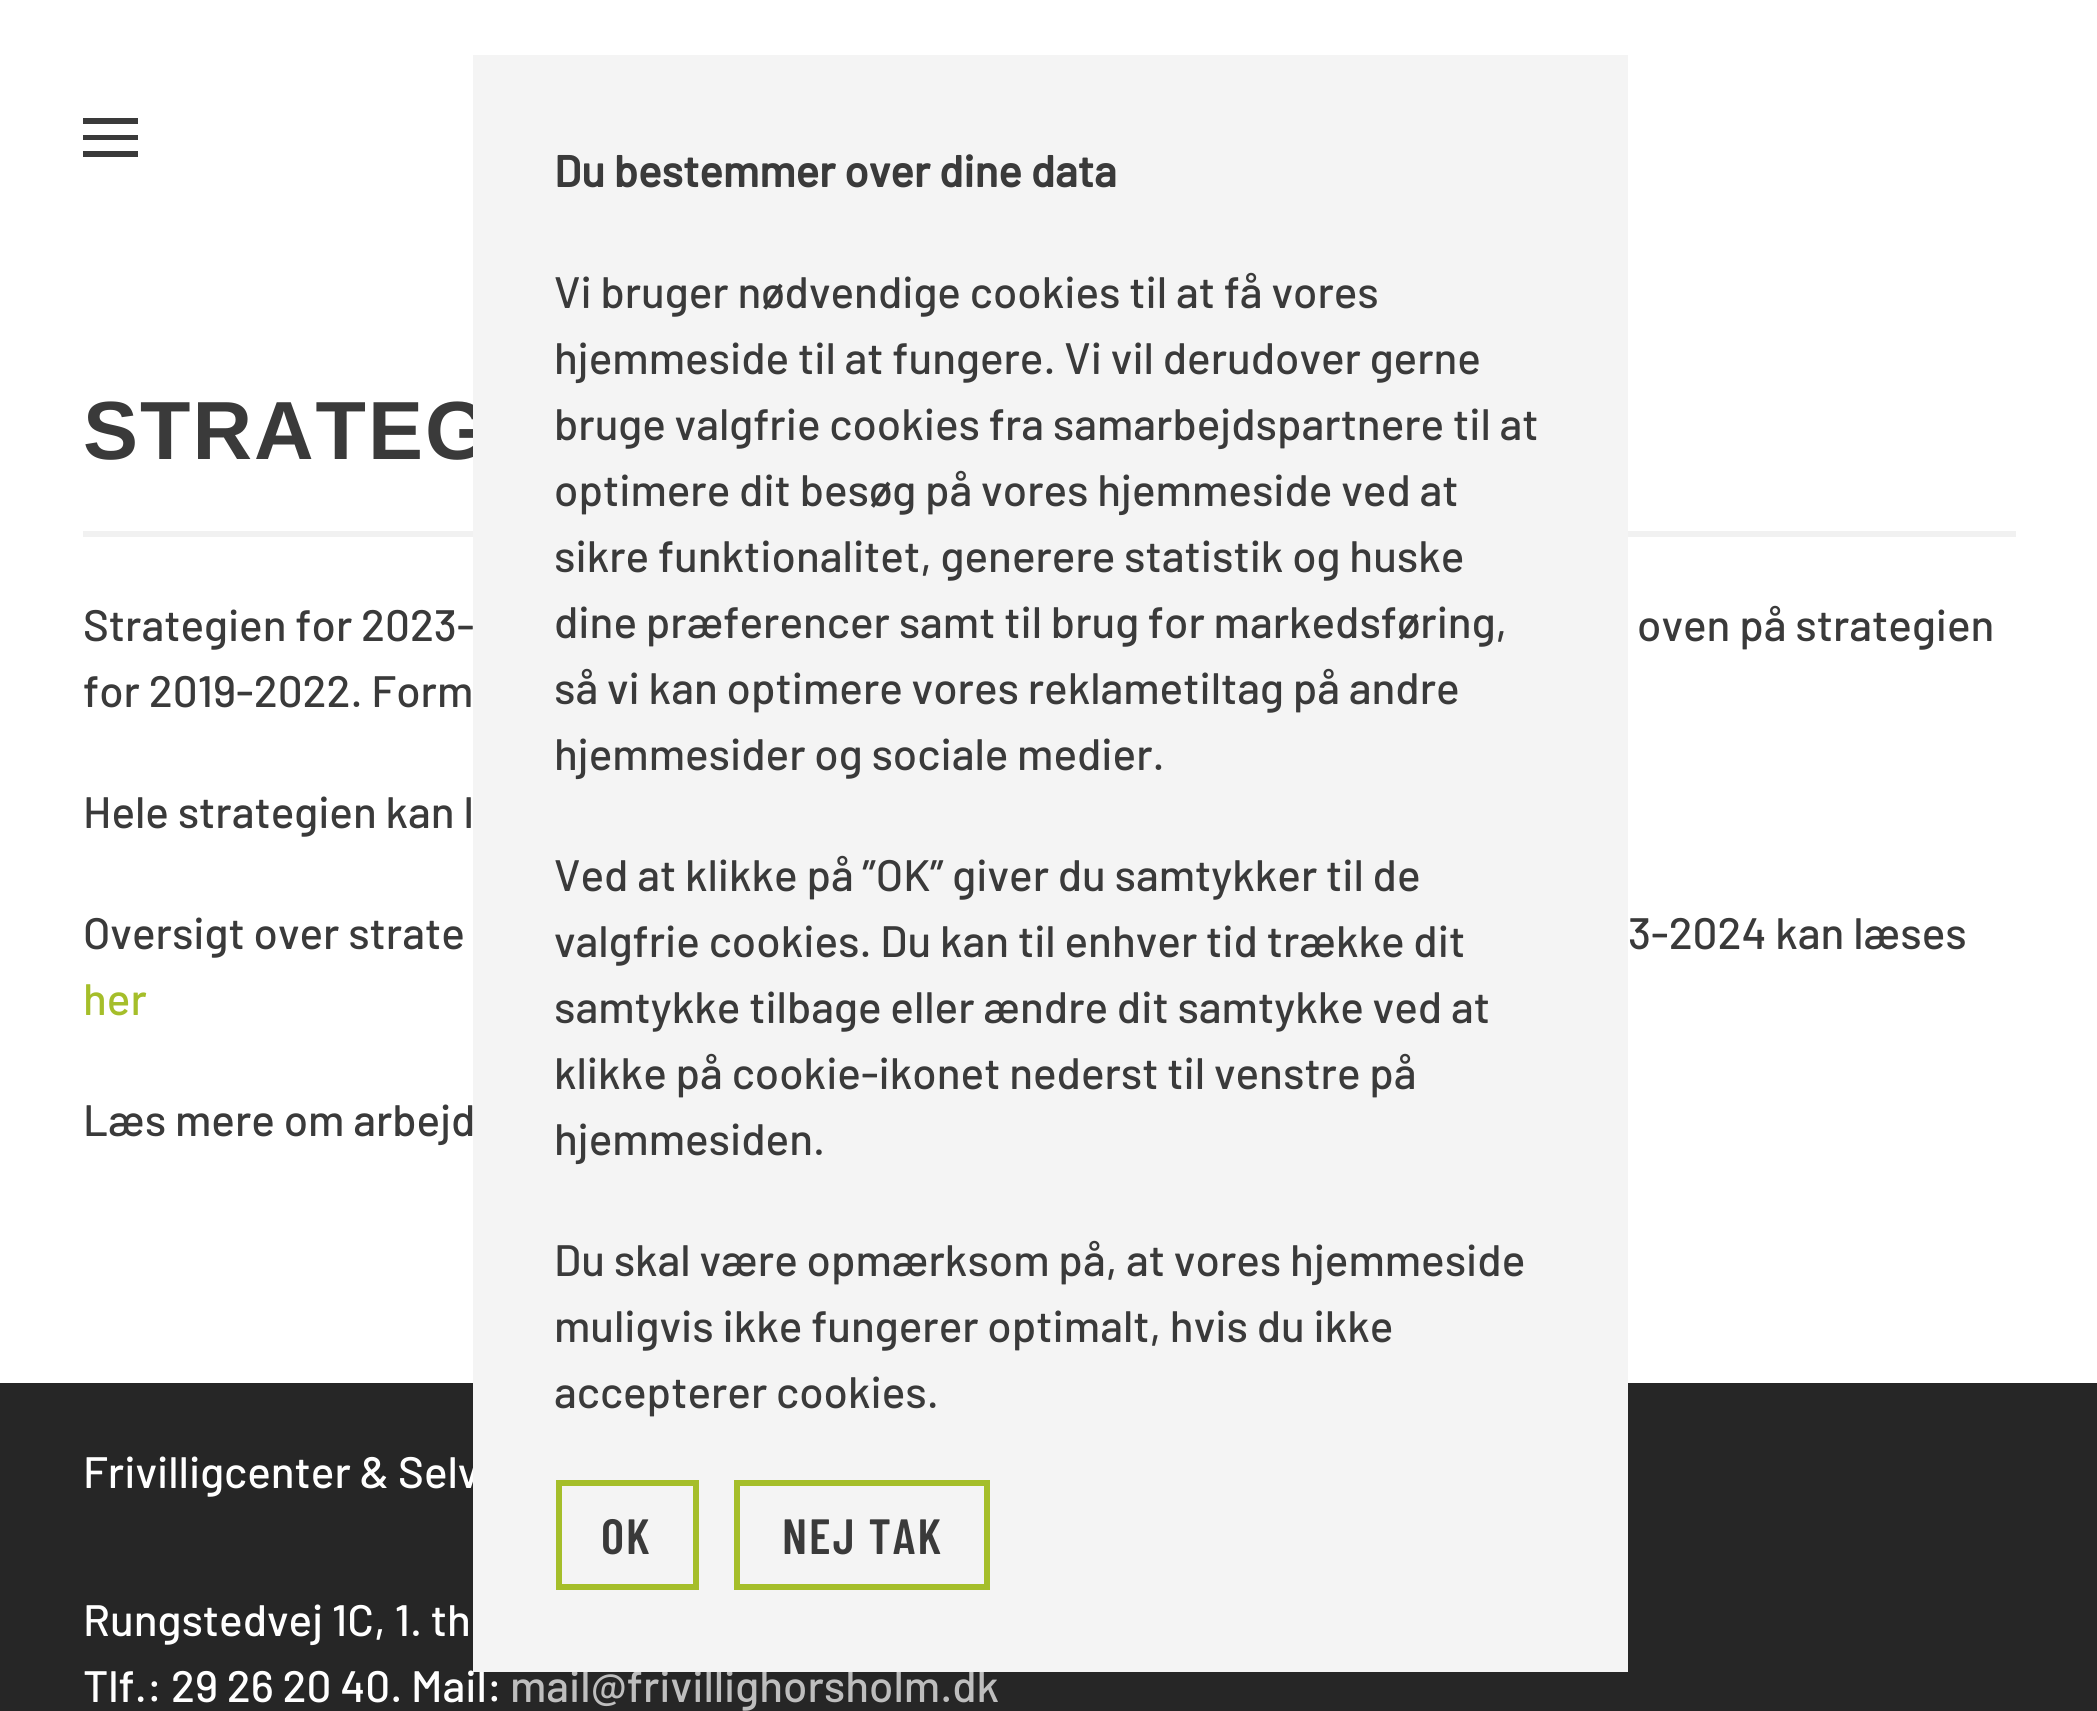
#include <cairo.h>
#include <math.h>
#include <stddef.h>


static void set_color(cairo_t *cr, unsigned color) {
    cairo_set_source_rgb(cr, (color >> 16) / 255.0, (color >> 8 & 255) / 255.0, (color & 255) / 255.0);
}

static void draw_text(cairo_t *cr, double x, double y, const char *s, const char *family, double size, int italic, int bold, unsigned color) {
    cairo_select_font_face(cr, family, italic ? CAIRO_FONT_SLANT_ITALIC : CAIRO_FONT_SLANT_NORMAL,
        bold ? CAIRO_FONT_WEIGHT_BOLD : CAIRO_FONT_WEIGHT_NORMAL);
    cairo_set_font_size(cr, size);
    set_color(cr, color);
    cairo_move_to(cr, x, y);
    cairo_show_text(cr, s);
}

static void draw_spaced(cairo_t *cr, double x, double y, const char *s, double letter, double word) {
    cairo_move_to(cr, x, y);
    while (*s) {
        char ch[5] = {0};
        int n = 0;
        do ch[n++] = *s++; while ((*s & 0xC0) == 0x80);
        cairo_show_text(cr, ch);
        cairo_rel_move_to(cr, letter + word * (*ch == ' '), 0);
    }
}

static void fill_rect(cairo_t *cr, double x, double y, double w, double h, unsigned color) {
    set_color(cr, color);
    cairo_rectangle(cr, x, y, w, h);
    cairo_fill(cr);
}

int main(void) {
    cairo_surface_t *surface = cairo_image_surface_create(CAIRO_FORMAT_RGB24, 2097, 1711);
    cairo_t *cr = cairo_create(surface);
    cairo_font_options_t *options = cairo_font_options_create();
    cairo_font_options_set_hint_metrics(options, CAIRO_HINT_METRICS_OFF);
    cairo_font_options_set_hint_style(options, CAIRO_HINT_STYLE_NONE);
    cairo_set_font_options(cr, options);
    cairo_set_miter_limit(cr, 4);
    set_color(cr, 0xFFFFFF);
    cairo_paint(cr);
    cairo_select_font_face(cr, "Liberation Sans", CAIRO_FONT_SLANT_NORMAL, CAIRO_FONT_WEIGHT_BOLD);
    cairo_set_font_size(cr, 82.5);
    set_color(cr, 0x3A3A3A);
    draw_spaced(cr, 83, 459, "STRATEG", 2, 0);
    fill_rect(cr, 83, 531, 1933, 6, 0xF1F1F1);
    fill_rect(cr, 0, 1383, 2097, 328, 0x262626);
    draw_text(cr, 83, 1488, "Frivilligcenter & Selv", "Barlow Medium", 44, 0, 0, 0xFFFFFF);
    draw_text(cr, 83, 1702, "Tlf.: 29 26 20 40. Mail:", "Barlow Medium", 44, 0, 0, 0xFFFFFF);
    draw_text(cr, 510, 1702, "mail@frivillighorsholm.dk", "Barlow Medium", 44, 0, 0, 0xBEBEBE);
    fill_rect(cr, 473, 55, 1155, 1617, 0xF4F4F4);
    draw_text(cr, 554, 187, "Du bestemmer over dine data", "Barlow", 44, 0, 1, 0x3A3A3A);
    draw_text(cr, 554, 308, "Vi bruger nødvendige cookies til at få vores", "Barlow Medium", 44, 0, 0, 0x3A3A3A);
    draw_text(cr, 554, 374, "hjemmeside til at fungere. Vi vil derudover gerne", "Barlow Medium", 44, 0, 0, 0x3A3A3A);
    draw_text(cr, 554, 440, "bruge valgfrie cookies fra samarbejdspartnere til at", "Barlow Medium", 44, 0, 0, 0x3A3A3A);
    draw_text(cr, 554, 506, "optimere dit besøg på vores hjemmeside ved at", "Barlow Medium", 44, 0, 0, 0x3A3A3A);
    draw_text(cr, 554, 572, "sikre funktionalitet, generere statistik og huske", "Barlow Medium", 44, 0, 0, 0x3A3A3A);
    draw_text(cr, 554, 638, "dine præferencer samt til brug for markedsføring,", "Barlow Medium", 44, 0, 0, 0x3A3A3A);
    draw_text(cr, 554, 704, "så vi kan optimere vores reklametiltag på andre", "Barlow Medium", 44, 0, 0, 0x3A3A3A);
    draw_text(cr, 554, 770, "hjemmesider og sociale medier.", "Barlow Medium", 44, 0, 0, 0x3A3A3A);
    draw_text(cr, 554, 891, "Ved at klikke på ”OK” giver du samtykker til de", "Barlow Medium", 44, 0, 0, 0x3A3A3A);
    draw_text(cr, 554, 957, "valgfrie cookies. Du kan til enhver tid trække dit", "Barlow Medium", 44, 0, 0, 0x3A3A3A);
    draw_text(cr, 554, 1023, "samtykke tilbage eller ændre dit samtykke ved at", "Barlow Medium", 44, 0, 0, 0x3A3A3A);
    draw_text(cr, 554, 1089, "klikke på cookie-ikonet nederst til venstre på", "Barlow Medium", 44, 0, 0, 0x3A3A3A);
    draw_text(cr, 554, 1155, "hjemmesiden.", "Barlow Medium", 44, 0, 0, 0x3A3A3A);
    draw_text(cr, 554, 1276, "Du skal være opmærksom på, at vores hjemmeside", "Barlow Medium", 44, 0, 0, 0x3A3A3A);
    draw_text(cr, 554, 1342, "muligvis ikke fungerer optimalt, hvis du ikke", "Barlow Medium", 44, 0, 0, 0x3A3A3A);
    draw_text(cr, 554, 1408, "accepterer cookies.", "Barlow Medium", 44, 0, 0, 0x3A3A3A);
    cairo_rectangle(cr, 559, 1483, 137, 104);
    set_color(cr, 0xA5BE2A);
    cairo_set_line_width(cr, 6);
    cairo_stroke(cr);
    cairo_select_font_face(cr, "Barlow Condensed SemiBold", CAIRO_FONT_SLANT_NORMAL, CAIRO_FONT_WEIGHT_NORMAL);
    cairo_set_font_size(cr, 49.5);
    set_color(cr, 0x3A3A3A);
    draw_spaced(cr, 601, 1554, "OK", 2, 0);
    cairo_rectangle(cr, 737, 1483, 250, 104);
    set_color(cr, 0xA5BE2A);
    cairo_stroke(cr);
    set_color(cr, 0x3A3A3A);
    draw_spaced(cr, 782, 1554, "NEJ TAK", 2, 0);
    fill_rect(cr, 83, 118, 55, 6, 0x3A3A3A);
    fill_rect(cr, 83, 135, 55, 5, 0x3A3A3A);
    fill_rect(cr, 83, 151, 55, 6, 0x3A3A3A);
    draw_text(cr, 83, 641, "Strategien for 2023-", "Barlow Medium", 44, 0, 0, 0x3A3A3A);
    draw_text(cr, 1637, 641, "oven på strategien", "Barlow Medium", 44, 0, 0, 0x3A3A3A);
    draw_text(cr, 83, 707, "for 2019-2022. Form", "Barlow Medium", 44, 0, 0, 0x3A3A3A);
    draw_text(cr, 83, 828, "Hele strategien kan l", "Barlow Medium", 44, 0, 0, 0x3A3A3A);
    draw_text(cr, 83, 949, "Oversigt over strate", "Barlow Medium", 44, 0, 0, 0x3A3A3A);
    draw_text(cr, 1628, 949, "3-2024 kan læses", "Barlow Medium", 44, 0, 0, 0x3A3A3A);
    draw_text(cr, 83, 1015, "her", "Barlow Medium", 44, 0, 0, 0xA5BE2A);
    draw_text(cr, 83, 1136, "Læs mere om arbejd", "Barlow Medium", 44, 0, 0, 0x3A3A3A);
    draw_text(cr, 83, 1636, "Rungstedvej 1C, 1. th", "Barlow Medium", 44, 0, 0, 0xFFFFFF);
    cairo_surface_write_to_png(surface, "output.png");
    cairo_font_options_destroy(options);
    cairo_destroy(cr);
    cairo_surface_destroy(surface);
    return 0;
}
